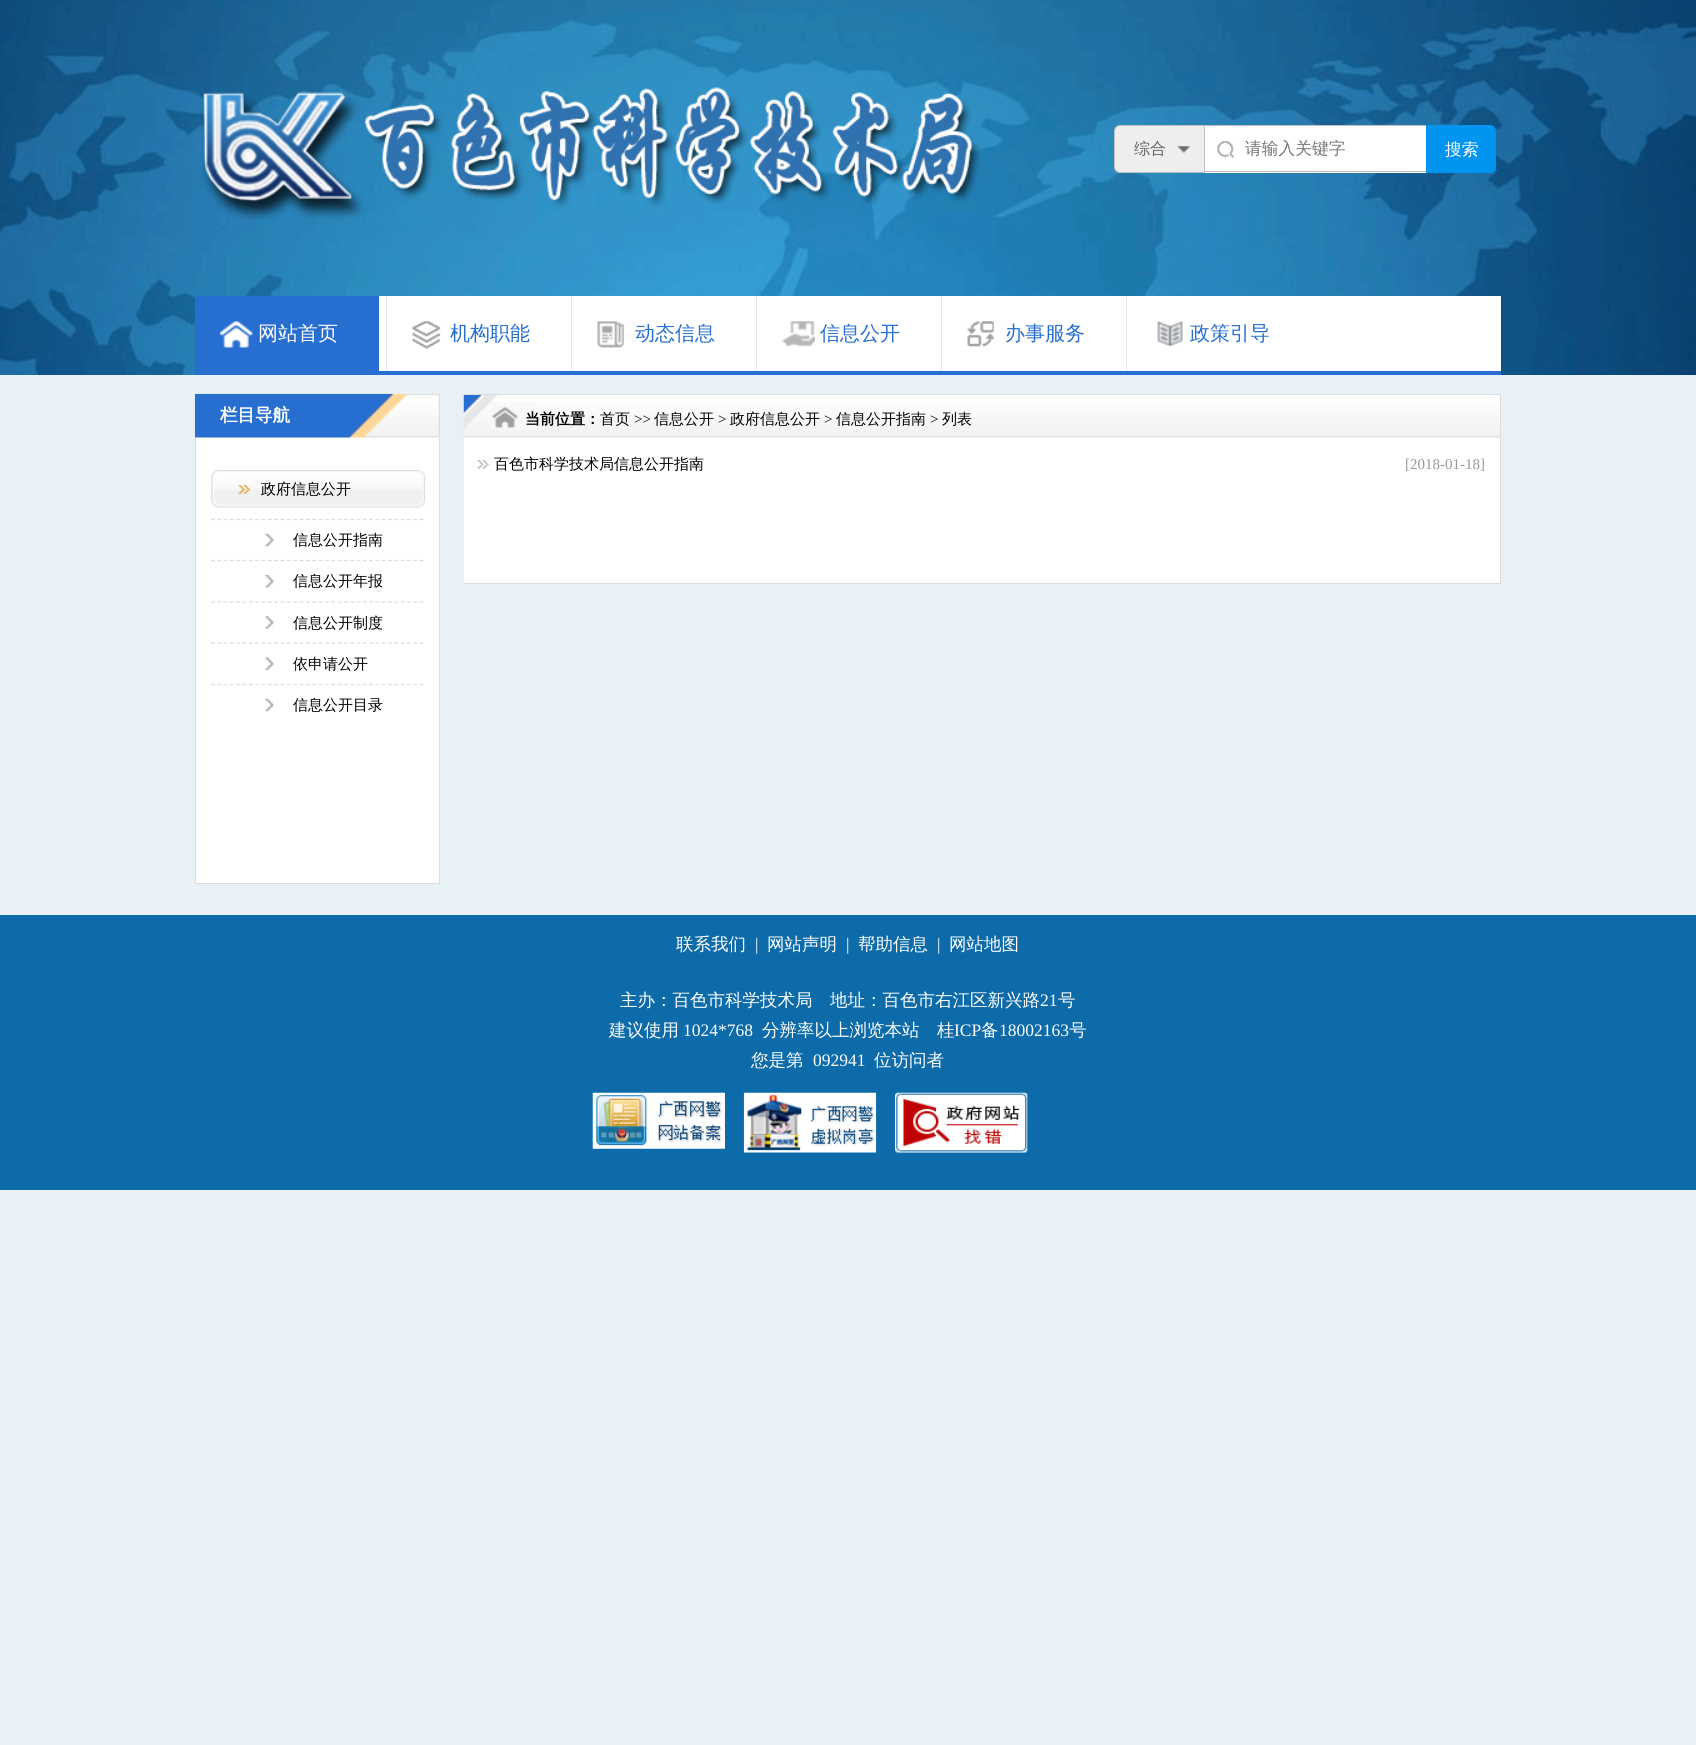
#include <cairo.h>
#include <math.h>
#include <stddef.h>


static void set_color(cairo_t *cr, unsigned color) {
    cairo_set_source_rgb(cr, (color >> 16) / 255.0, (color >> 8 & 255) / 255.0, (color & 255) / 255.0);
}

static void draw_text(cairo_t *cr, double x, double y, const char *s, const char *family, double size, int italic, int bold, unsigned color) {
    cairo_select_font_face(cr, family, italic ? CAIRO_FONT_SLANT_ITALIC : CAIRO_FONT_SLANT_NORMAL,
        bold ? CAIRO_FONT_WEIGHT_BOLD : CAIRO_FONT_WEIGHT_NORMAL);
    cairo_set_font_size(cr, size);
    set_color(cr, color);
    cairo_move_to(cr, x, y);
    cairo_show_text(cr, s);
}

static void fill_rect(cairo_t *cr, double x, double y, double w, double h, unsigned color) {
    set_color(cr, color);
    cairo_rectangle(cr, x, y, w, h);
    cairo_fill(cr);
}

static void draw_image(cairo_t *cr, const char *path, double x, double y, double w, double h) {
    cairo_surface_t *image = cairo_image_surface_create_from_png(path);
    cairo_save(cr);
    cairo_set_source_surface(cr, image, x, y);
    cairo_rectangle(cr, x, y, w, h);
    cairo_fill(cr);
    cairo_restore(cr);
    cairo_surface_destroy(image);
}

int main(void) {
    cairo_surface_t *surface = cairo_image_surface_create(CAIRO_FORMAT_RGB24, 1696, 1745);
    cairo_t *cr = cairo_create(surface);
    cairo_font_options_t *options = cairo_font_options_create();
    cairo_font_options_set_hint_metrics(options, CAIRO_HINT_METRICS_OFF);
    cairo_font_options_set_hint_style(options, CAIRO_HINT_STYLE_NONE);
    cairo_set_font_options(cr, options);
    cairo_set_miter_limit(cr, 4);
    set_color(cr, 0xE7F1F6);
    cairo_paint(cr);
    draw_image(cr, "assets/img1.png", 0, 0, 1696, 375);
    draw_image(cr, "assets/img2.png", 201, 87, 780, 134);
    set_color(cr, 0xEEEEEE);
    cairo_new_path(cr);
    cairo_move_to(cr, 1120, 125.5);
    cairo_line_to(cr, 1204.5, 125.5);
    cairo_line_to(cr, 1204.5, 172.5);
    cairo_line_to(cr, 1120, 172.5);
    cairo_curve_to(cr, 1117, 172.5, 1114.5, 170, 1114.5, 167);
    cairo_line_to(cr, 1114.5, 131);
    cairo_curve_to(cr, 1114.5, 128, 1117, 125.5, 1120, 125.5);
    cairo_close_path(cr);
    cairo_fill_preserve(cr);
    set_color(cr, 0xBFBFBF);
    cairo_set_line_width(cr, 1);
    cairo_stroke(cr);
    draw_image(cr, "assets/img3.png", 1177, 146, 13, 7);
    draw_text(cr, 1134, 154, "综合", "WenQuanYi Zen Hei Medium", 16, 0, 0, 0x656464);
    fill_rect(cr, 1205, 126, 221, 47, 0xFFFFFF);
    draw_image(cr, "assets/img4.png", 1217, 141, 17, 17);
    fill_rect(cr, 1205, 125, 221, 1, 0xBFBFBF);
    fill_rect(cr, 1205, 171, 221, 1, 0xBFBFBF);
    draw_text(cr, 1245, 154, "请输入关键字", "WenQuanYi Zen Hei Medium", 16.75, 0, 0, 0x757575);
    set_color(cr, 0x0194F1);
    cairo_new_path(cr);
    cairo_move_to(cr, 1426, 125);
    cairo_line_to(cr, 1490, 125);
    cairo_curve_to(cr, 1493.5, 125, 1496, 127.5, 1496, 131);
    cairo_line_to(cr, 1496, 167);
    cairo_curve_to(cr, 1496, 170.5, 1493.5, 173, 1490, 173);
    cairo_line_to(cr, 1426, 173);
    cairo_close_path(cr);
    cairo_fill(cr);
    draw_text(cr, 1445, 155, "搜索", "WenQuanYi Zen Hei Medium", 16.75, 0, 0, 0xFFFFFF);
    fill_rect(cr, 379, 296, 1122, 75, 0xFFFFFF);
    fill_rect(cr, 195, 371, 1306, 4, 0x266ED0);
    fill_rect(cr, 195, 296, 184, 75, 0x266ED0);
    draw_image(cr, "assets/img5.png", 220, 321, 33, 27);
    draw_text(cr, 258, 340, "网站首页", "WenQuanYi Zen Hei Medium", 20, 0, 0, 0xFFFFFF);
    fill_rect(cr, 386, 296, 1, 75, 0xE5E5E5);
    draw_image(cr, "assets/img6.png", 412, 321, 29, 28);
    draw_text(cr, 450, 340, "机构职能", "WenQuanYi Zen Hei Medium", 20, 0, 0, 0x266ED0);
    fill_rect(cr, 571, 296, 1, 75, 0xE5E5E5);
    draw_image(cr, "assets/img7.png", 597, 321, 27, 27);
    draw_text(cr, 635, 340, "动态信息", "WenQuanYi Zen Hei Medium", 20, 0, 0, 0x266ED0);
    fill_rect(cr, 756, 296, 1, 75, 0xE5E5E5);
    draw_image(cr, "assets/img8.png", 782, 321, 33, 26);
    draw_text(cr, 820, 340, "信息公开", "WenQuanYi Zen Hei Medium", 20, 0, 0, 0x266ED0);
    fill_rect(cr, 941, 296, 1, 75, 0xE5E5E5);
    draw_image(cr, "assets/img9.png", 967, 321, 27, 26);
    draw_text(cr, 1005, 340, "办事服务", "WenQuanYi Zen Hei Medium", 20, 0, 0, 0x266ED0);
    fill_rect(cr, 1126, 296, 1, 75, 0xE5E5E5);
    draw_image(cr, "assets/img10.png", 1157, 321, 26, 26);
    draw_text(cr, 1190, 340, "政策引导", "WenQuanYi Zen Hei Medium", 20, 0, 0, 0x266ED0);
    fill_rect(cr, 195, 437, 245, 446, 0xFFFFFF);
    draw_image(cr, "assets/img11.png", 195, 393, 245, 45);
    draw_text(cr, 220, 421, "栏目导航", "WenQuanYi Zen Hei", 17.5, 0, 1, 0xFFFFFF);
    fill_rect(cr, 439, 438, 1, 446, 0xDDDDDD);
    fill_rect(cr, 195, 883, 245, 1, 0xDDDDDD);
    fill_rect(cr, 195, 438, 1, 446, 0xDDDDDD);
    draw_image(cr, "assets/img12.png", 211, 470, 214, 38);
    draw_text(cr, 261, 494, "政府信息公开", "WenQuanYi Zen Hei Medium", 15, 0, 0, 0x000000);
    draw_image(cr, "assets/img13.png", 265, 533, 9, 14);
    cairo_new_path(cr);
    cairo_move_to(cr, 211, 519.5);
    cairo_line_to(cr, 424, 519.5);
    set_color(cr, 0xDDDDDD);
    cairo_set_line_width(cr, 1.2);
    cairo_set_dash(cr, (double[]){3.75, 2.58}, 2, 0);
    cairo_stroke(cr);
    draw_text(cr, 293, 545, "信息公开指南", "WenQuanYi Zen Hei Medium", 15, 0, 0, 0x000000);
    draw_image(cr, "assets/img14.png", 265, 575, 9, 13);
    cairo_new_path(cr);
    cairo_move_to(cr, 211, 560.5);
    cairo_line_to(cr, 424, 560.5);
    set_color(cr, 0xDDDDDD);
    cairo_stroke(cr);
    draw_text(cr, 293, 586, "信息公开年报", "WenQuanYi Zen Hei Medium", 15, 0, 0, 0x000000);
    draw_image(cr, "assets/img15.png", 265, 616, 9, 13);
    cairo_new_path(cr);
    cairo_move_to(cr, 211, 602);
    cairo_line_to(cr, 424, 602);
    set_color(cr, 0xDDDDDD);
    cairo_stroke(cr);
    draw_text(cr, 293, 628, "信息公开制度", "WenQuanYi Zen Hei Medium", 15, 0, 0, 0x000000);
    draw_image(cr, "assets/img16.png", 265, 657, 9, 13);
    cairo_new_path(cr);
    cairo_move_to(cr, 211, 643);
    cairo_line_to(cr, 424, 643);
    set_color(cr, 0xDDDDDD);
    cairo_stroke(cr);
    draw_text(cr, 293, 669, "依申请公开", "WenQuanYi Zen Hei Medium", 15, 0, 0, 0x000000);
    draw_image(cr, "assets/img13.png", 265, 698, 9, 14);
    cairo_new_path(cr);
    cairo_move_to(cr, 211, 684.5);
    cairo_line_to(cr, 424, 684.5);
    set_color(cr, 0xDDDDDD);
    cairo_stroke(cr);
    draw_text(cr, 293, 710, "信息公开目录", "WenQuanYi Zen Hei Medium", 15, 0, 0, 0x000000);
    fill_rect(cr, 464, 437, 1036, 146, 0xFFFFFF);
    cairo_save(cr);
    cairo_rectangle(cr, 464, 394, 1037, 190);
    cairo_clip(cr);
    cairo_rectangle(cr, 461.5, 394.5, 1039, 189);
    set_color(cr, 0xDDDDDD);
    cairo_set_line_width(cr, 1);
    cairo_set_dash(cr, NULL, 0, 0);
    cairo_stroke(cr);
    cairo_restore(cr);
    draw_image(cr, "assets/img17.png", 463, 395, 1037, 43);
    draw_image(cr, "assets/img18.png", 463, 395, 72, 34);
    draw_text(cr, 525, 424, "当前位置：", "WenQuanYi Zen Hei", 15, 0, 1, 0x000000);
    draw_text(cr, 600, 424, "首页", "WenQuanYi Zen Hei Medium", 15, 0, 0, 0x000000);
    draw_text(cr, 634, 424, ">>", "Liberation Serif", 15, 0, 0, 0x000000);
    draw_text(cr, 654, 424, "信息公开", "WenQuanYi Zen Hei Medium", 15, 0, 0, 0x000000);
    draw_text(cr, 718, 424, ">", "Liberation Serif", 15, 0, 0, 0x000000);
    draw_text(cr, 730, 424, "政府信息公开", "WenQuanYi Zen Hei Medium", 15, 0, 0, 0x000000);
    draw_text(cr, 824, 424, ">", "Liberation Serif", 15, 0, 0, 0x000000);
    draw_text(cr, 836, 424, "信息公开指南", "WenQuanYi Zen Hei Medium", 15, 0, 0, 0x000000);
    draw_text(cr, 930, 424, ">", "Liberation Serif", 15, 0, 0, 0x000000);
    draw_text(cr, 942, 424, "列表", "WenQuanYi Zen Hei Medium", 15, 0, 0, 0x000000);
    draw_image(cr, "assets/img19.png", 477, 460, 12, 9);
    draw_text(cr, 494, 469, "百色市科学技术局信息公开指南", "WenQuanYi Zen Hei Medium", 15, 0, 0, 0x000000);
    draw_text(cr, 1405, 469, "[2018-01-18]", "Liberation Serif", 15, 0, 0, 0x999999);
    fill_rect(cr, 0, 915, 1696, 275, 0x0C6BA8);
    draw_text(cr, 676, 950, "联系我们", "WenQuanYi Zen Hei Medium", 17.5, 0, 0, 0xFFFFFF);
    draw_text(cr, 755, 950, "|", "Liberation Serif", 17.5, 0, 0, 0xFFFFFF);
    draw_text(cr, 767, 950, "网站声明", "WenQuanYi Zen Hei Medium", 17.5, 0, 0, 0xFFFFFF);
    draw_text(cr, 846, 950, "|", "Liberation Serif", 17.5, 0, 0, 0xFFFFFF);
    draw_text(cr, 858, 950, "帮助信息", "WenQuanYi Zen Hei Medium", 17.5, 0, 0, 0xFFFFFF);
    draw_text(cr, 937, 950, "|", "Liberation Serif", 17.5, 0, 0, 0xFFFFFF);
    draw_text(cr, 949, 950, "网站地图", "WenQuanYi Zen Hei Medium", 17.5, 0, 0, 0xFFFFFF);
    draw_text(cr, 620, 1006, "主办：百色市科学技术局", "WenQuanYi Zen Hei Medium", 17.5, 0, 0, 0xFFFFFF);
    draw_text(cr, 830, 1006, "地址：百色市右江区新兴路", "WenQuanYi Zen Hei Medium", 17.5, 0, 0, 0xFFFFFF);
    draw_text(cr, 1040, 1006, "21", "Liberation Serif", 17.5, 0, 0, 0xFFFFFF);
    draw_text(cr, 1058, 1006, "号", "WenQuanYi Zen Hei Medium", 17.5, 0, 0, 0xFFFFFF);
    draw_text(cr, 609, 1036, "建议使用", "WenQuanYi Zen Hei Medium", 17.5, 0, 0, 0xFFFFFF);
    draw_text(cr, 683, 1036, "1024*768", "Liberation Serif", 17.5, 0, 0, 0xFFFFFF);
    draw_text(cr, 762, 1036, "分辨率以上浏览本站", "WenQuanYi Zen Hei Medium", 17.5, 0, 0, 0xFFFFFF);
    draw_text(cr, 937, 1036, "桂", "WenQuanYi Zen Hei Medium", 17.5, 0, 0, 0xFFFFFF);
    draw_text(cr, 954, 1036, "ICP", "Liberation Serif", 17.5, 0, 0, 0xFFFFFF);
    draw_text(cr, 981, 1036, "备", "WenQuanYi Zen Hei Medium", 17.5, 0, 0, 0xFFFFFF);
    draw_text(cr, 999, 1036, "18002163", "Liberation Serif", 17.5, 0, 0, 0xFFFFFF);
    draw_text(cr, 1069, 1036, "号", "WenQuanYi Zen Hei Medium", 17.5, 0, 0, 0xFFFFFF);
    draw_text(cr, 751, 1066, "您是第", "WenQuanYi Zen Hei Medium", 17.5, 0, 0, 0xFFFFFF);
    draw_text(cr, 813, 1066, "092941", "Liberation Serif", 17.5, 0, 0, 0xFFFFFF);
    draw_text(cr, 874, 1066, "位访问者", "WenQuanYi Zen Hei Medium", 17.5, 0, 0, 0xFFFFFF);
    draw_image(cr, "assets/img20.png", 592, 1092, 133, 57);
    draw_image(cr, "assets/img21.png", 743, 1092, 134, 61);
    draw_image(cr, "assets/img22.png", 895, 1092, 133, 61);
    cairo_surface_write_to_png(surface, "output.png");
    cairo_font_options_destroy(options);
    cairo_destroy(cr);
    cairo_surface_destroy(surface);
    return 0;
}
